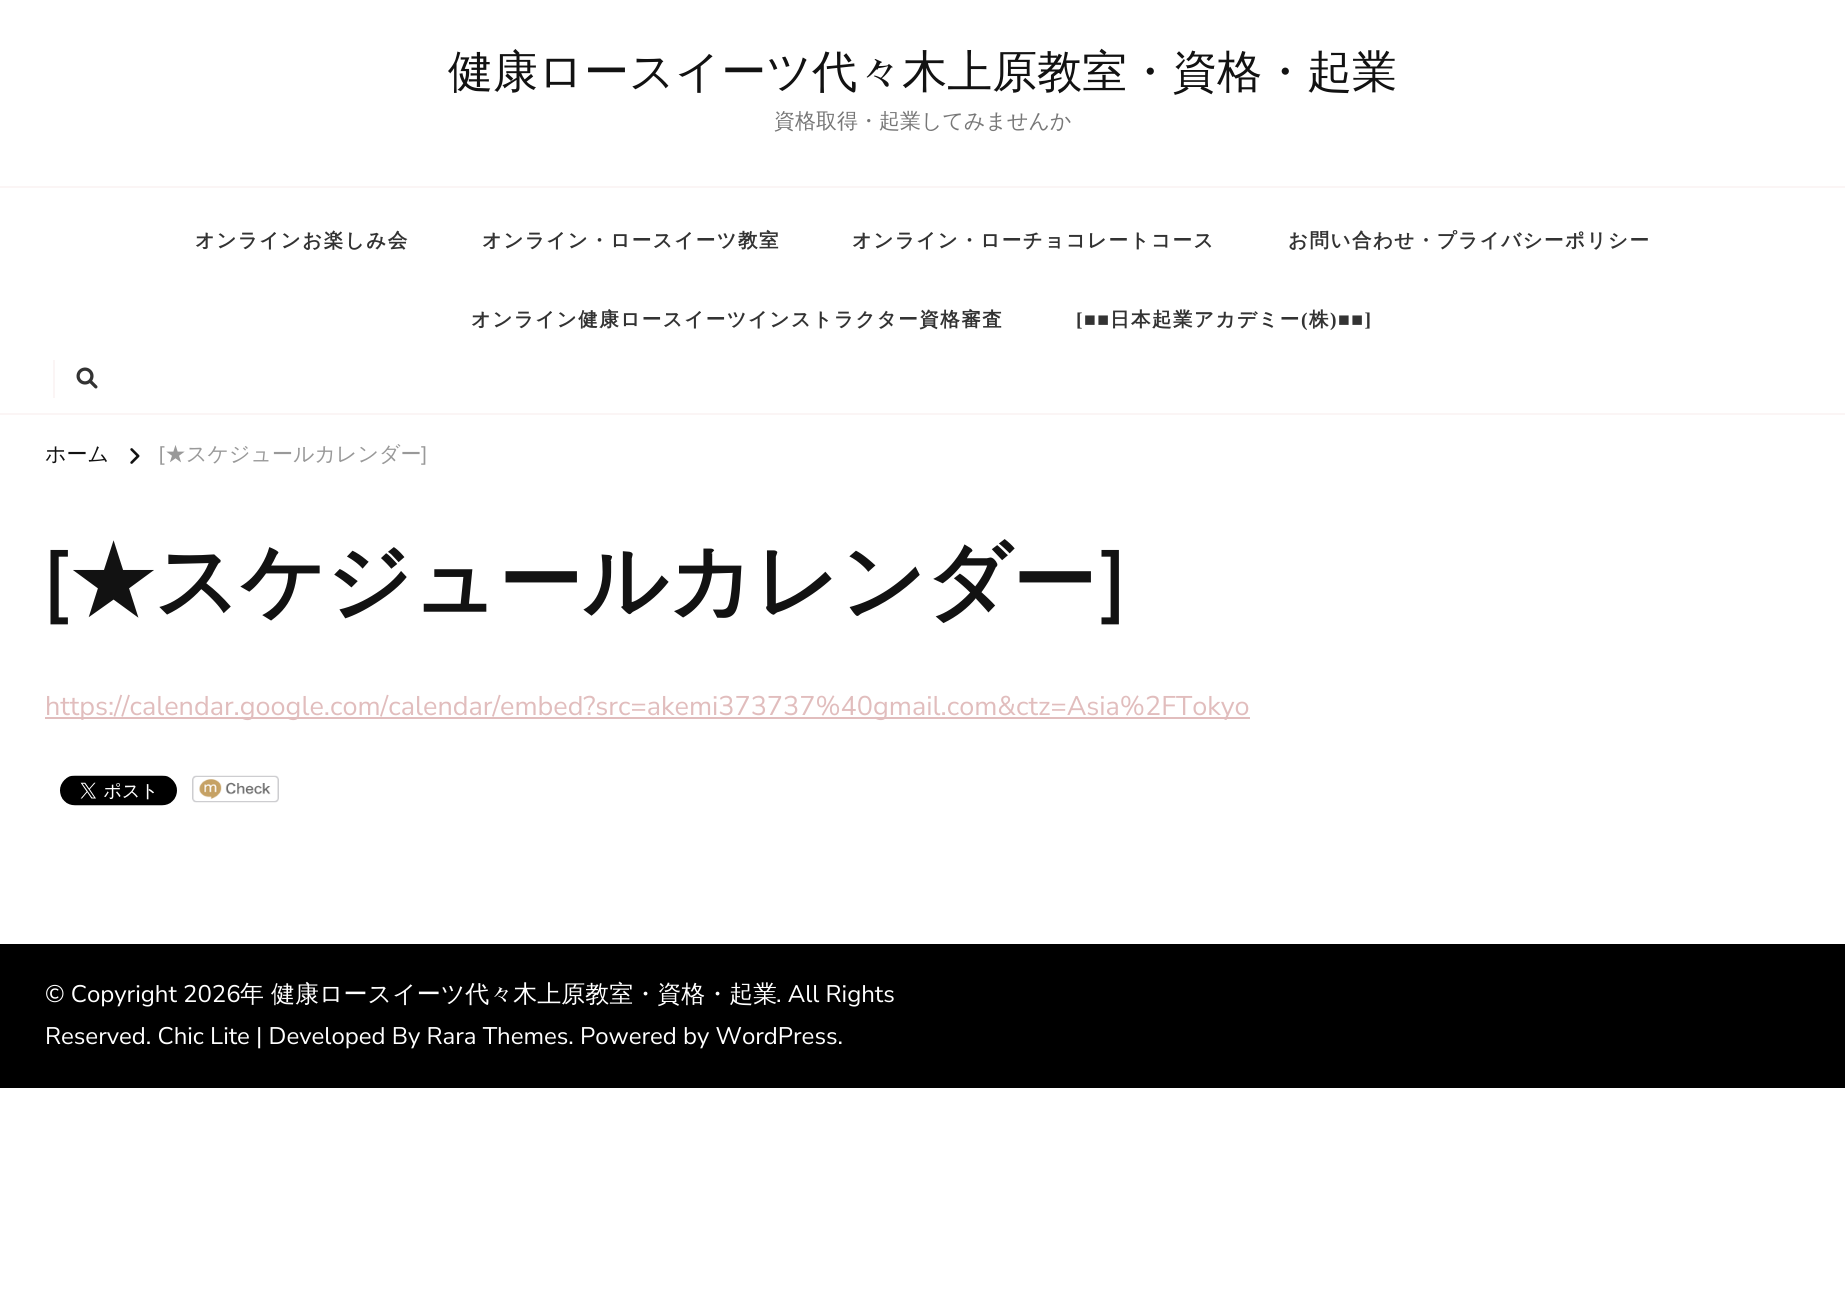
#include <cairo.h>
#include <math.h>
#include <stddef.h>


static void set_color(cairo_t *cr, unsigned color) {
    cairo_set_source_rgb(cr, (color >> 16) / 255.0, (color >> 8 & 255) / 255.0, (color & 255) / 255.0);
}

static void draw_text(cairo_t *cr, double x, double y, const char *s, const char *family, double size, int italic, int bold, unsigned color) {
    cairo_select_font_face(cr, family, italic ? CAIRO_FONT_SLANT_ITALIC : CAIRO_FONT_SLANT_NORMAL,
        bold ? CAIRO_FONT_WEIGHT_BOLD : CAIRO_FONT_WEIGHT_NORMAL);
    cairo_set_font_size(cr, size);
    set_color(cr, color);
    cairo_move_to(cr, x, y);
    cairo_show_text(cr, s);
}

static void draw_spaced(cairo_t *cr, double x, double y, const char *s, double letter, double word) {
    cairo_move_to(cr, x, y);
    while (*s) {
        char ch[5] = {0};
        int n = 0;
        do ch[n++] = *s++; while ((*s & 0xC0) == 0x80);
        cairo_show_text(cr, ch);
        cairo_rel_move_to(cr, letter + word * (*ch == ' '), 0);
    }
}

static void fill_rect(cairo_t *cr, double x, double y, double w, double h, unsigned color) {
    set_color(cr, color);
    cairo_rectangle(cr, x, y, w, h);
    cairo_fill(cr);
}

static void draw_image(cairo_t *cr, const char *path, double x, double y, double w, double h) {
    cairo_surface_t *image = cairo_image_surface_create_from_png(path);
    cairo_save(cr);
    cairo_set_source_surface(cr, image, x, y);
    cairo_rectangle(cr, x, y, w, h);
    cairo_fill(cr);
    cairo_restore(cr);
    cairo_surface_destroy(image);
}

int main(void) {
    cairo_surface_t *surface = cairo_image_surface_create(CAIRO_FORMAT_RGB24, 1845, 1302);
    cairo_t *cr = cairo_create(surface);
    cairo_font_options_t *options = cairo_font_options_create();
    cairo_font_options_set_hint_metrics(options, CAIRO_HINT_METRICS_OFF);
    cairo_font_options_set_hint_style(options, CAIRO_HINT_STYLE_NONE);
    cairo_set_font_options(cr, options);
    cairo_set_miter_limit(cr, 4);
    set_color(cr, 0xFFFFFF);
    cairo_paint(cr);
    draw_text(cr, 448, 87, "健康ロースイーツ代々木上原教室・資格・起業", "WenQuanYi Zen Hei Medium", 45, 0, 0, 0x121212);
    draw_text(cr, 774, 128, "資格取得・起業してみませんか", "WenQuanYi Zen Hei Medium", 21, 0, 0, 0x777777);
    fill_rect(cr, 0, 186, 1845, 2, 0xFBF5F5);
    fill_rect(cr, 0, 413, 1845, 2, 0xFBF5F5);
    cairo_select_font_face(cr, "WenQuanYi Zen Hei", CAIRO_FONT_SLANT_NORMAL, CAIRO_FONT_WEIGHT_BOLD);
    cairo_set_font_size(cr, 19.5);
    set_color(cr, 0x333333);
    draw_spaced(cr, 195, 247, "オンラインお楽しみ会", 1.5, 0);
    draw_spaced(cr, 482, 247, "オンライン・ロースイーツ教室", 1.5, 0);
    draw_spaced(cr, 852, 247, "オンライン・ローチョコレートコース", 1.5, 0);
    draw_spaced(cr, 1288, 247, "お問い合わせ・プライバシーポリシー", 1.5, 0);
    draw_spaced(cr, 471, 326, "オンライン健康ロースイーツインストラクター資格審査", 1.5, 0);
    cairo_select_font_face(cr, "Liberation Serif", CAIRO_FONT_SLANT_NORMAL, CAIRO_FONT_WEIGHT_BOLD);
    draw_spaced(cr, 1076, 326, "[■■", 1.5, 0);
    cairo_select_font_face(cr, "WenQuanYi Zen Hei", CAIRO_FONT_SLANT_NORMAL, CAIRO_FONT_WEIGHT_BOLD);
    draw_spaced(cr, 1110, 326, "日本起業アカデミー", 1.5, 0);
    cairo_select_font_face(cr, "Liberation Serif", CAIRO_FONT_SLANT_NORMAL, CAIRO_FONT_WEIGHT_BOLD);
    draw_spaced(cr, 1301, 326, "(", 1.5, 0);
    cairo_select_font_face(cr, "WenQuanYi Zen Hei", CAIRO_FONT_SLANT_NORMAL, CAIRO_FONT_WEIGHT_BOLD);
    draw_spaced(cr, 1309, 326, "株", 1.5, 0);
    cairo_select_font_face(cr, "Liberation Serif", CAIRO_FONT_SLANT_NORMAL, CAIRO_FONT_WEIGHT_BOLD);
    draw_spaced(cr, 1330, 326, ")■■]", 1.5, 0);
    fill_rect(cr, 53, 360, 2, 38, 0xFBF5F5);
    draw_image(cr, "assets/img1.png", 76, 367, 22, 22);
    draw_text(cr, 45, 461, "ホーム", "WenQuanYi Zen Hei Medium", 21, 0, 0, 0x121212);
    draw_image(cr, "assets/img2.png", 130, 448, 10, 16);
    draw_text(cr, 158, 461, "[", "Nunito Sans", 21, 0, 0, 0x999999);
    draw_text(cr, 165, 461, "★スケジュールカレンダー", "WenQuanYi Zen Hei Medium", 21, 0, 0, 0x999999);
    draw_text(cr, 421, 461, "]", "Nunito Sans", 21, 0, 0, 0x999999);
    draw_text(cr, 45, 610, "[★スケジュールカレンダー]", "WenQuanYi Zen Hei", 84, 0, 1, 0x121212);
    fill_rect(cr, 45, 717, 1205, 2, 0xE1BDBD);
    draw_text(cr, 45, 715, "https://calendar.google.com/calendar/embed?src=akemi373737%40gmail.com&ctz=Asia%2FTokyo", "Nunito Sans", 27, 0, 0, 0xE1BDBD);
    draw_image(cr, "assets/img3.png", 60, 775, 117, 31);
    draw_image(cr, "assets/img4.png", 192, 775, 87, 28);
    fill_rect(cr, 0, 944, 1845, 144, 0x000000);
    draw_text(cr, 45, 1002, "© Copyright 2026", "Nunito Sans", 24, 0, 0, 0xFFFFFF);
    draw_text(cr, 240, 1002, "年", "WenQuanYi Zen Hei Medium", 24, 0, 0, 0xFFFFFF);
    draw_text(cr, 271, 1002, "健康ロースイーツ代々木上原教室・資格・起業", "WenQuanYi Zen Hei Medium", 24, 0, 0, 0xFFFFFF);
    draw_text(cr, 776, 1002, ". All Rights", "Nunito Sans", 24, 0, 0, 0xFFFFFF);
    draw_text(cr, 45, 1044, "Reserved. Chic Lite | Developed By Rara Themes. Powered by WordPress.", "Nunito Sans", 24, 0, 0, 0xFFFFFF);
    cairo_surface_write_to_png(surface, "output.png");
    cairo_font_options_destroy(options);
    cairo_destroy(cr);
    cairo_surface_destroy(surface);
    return 0;
}
